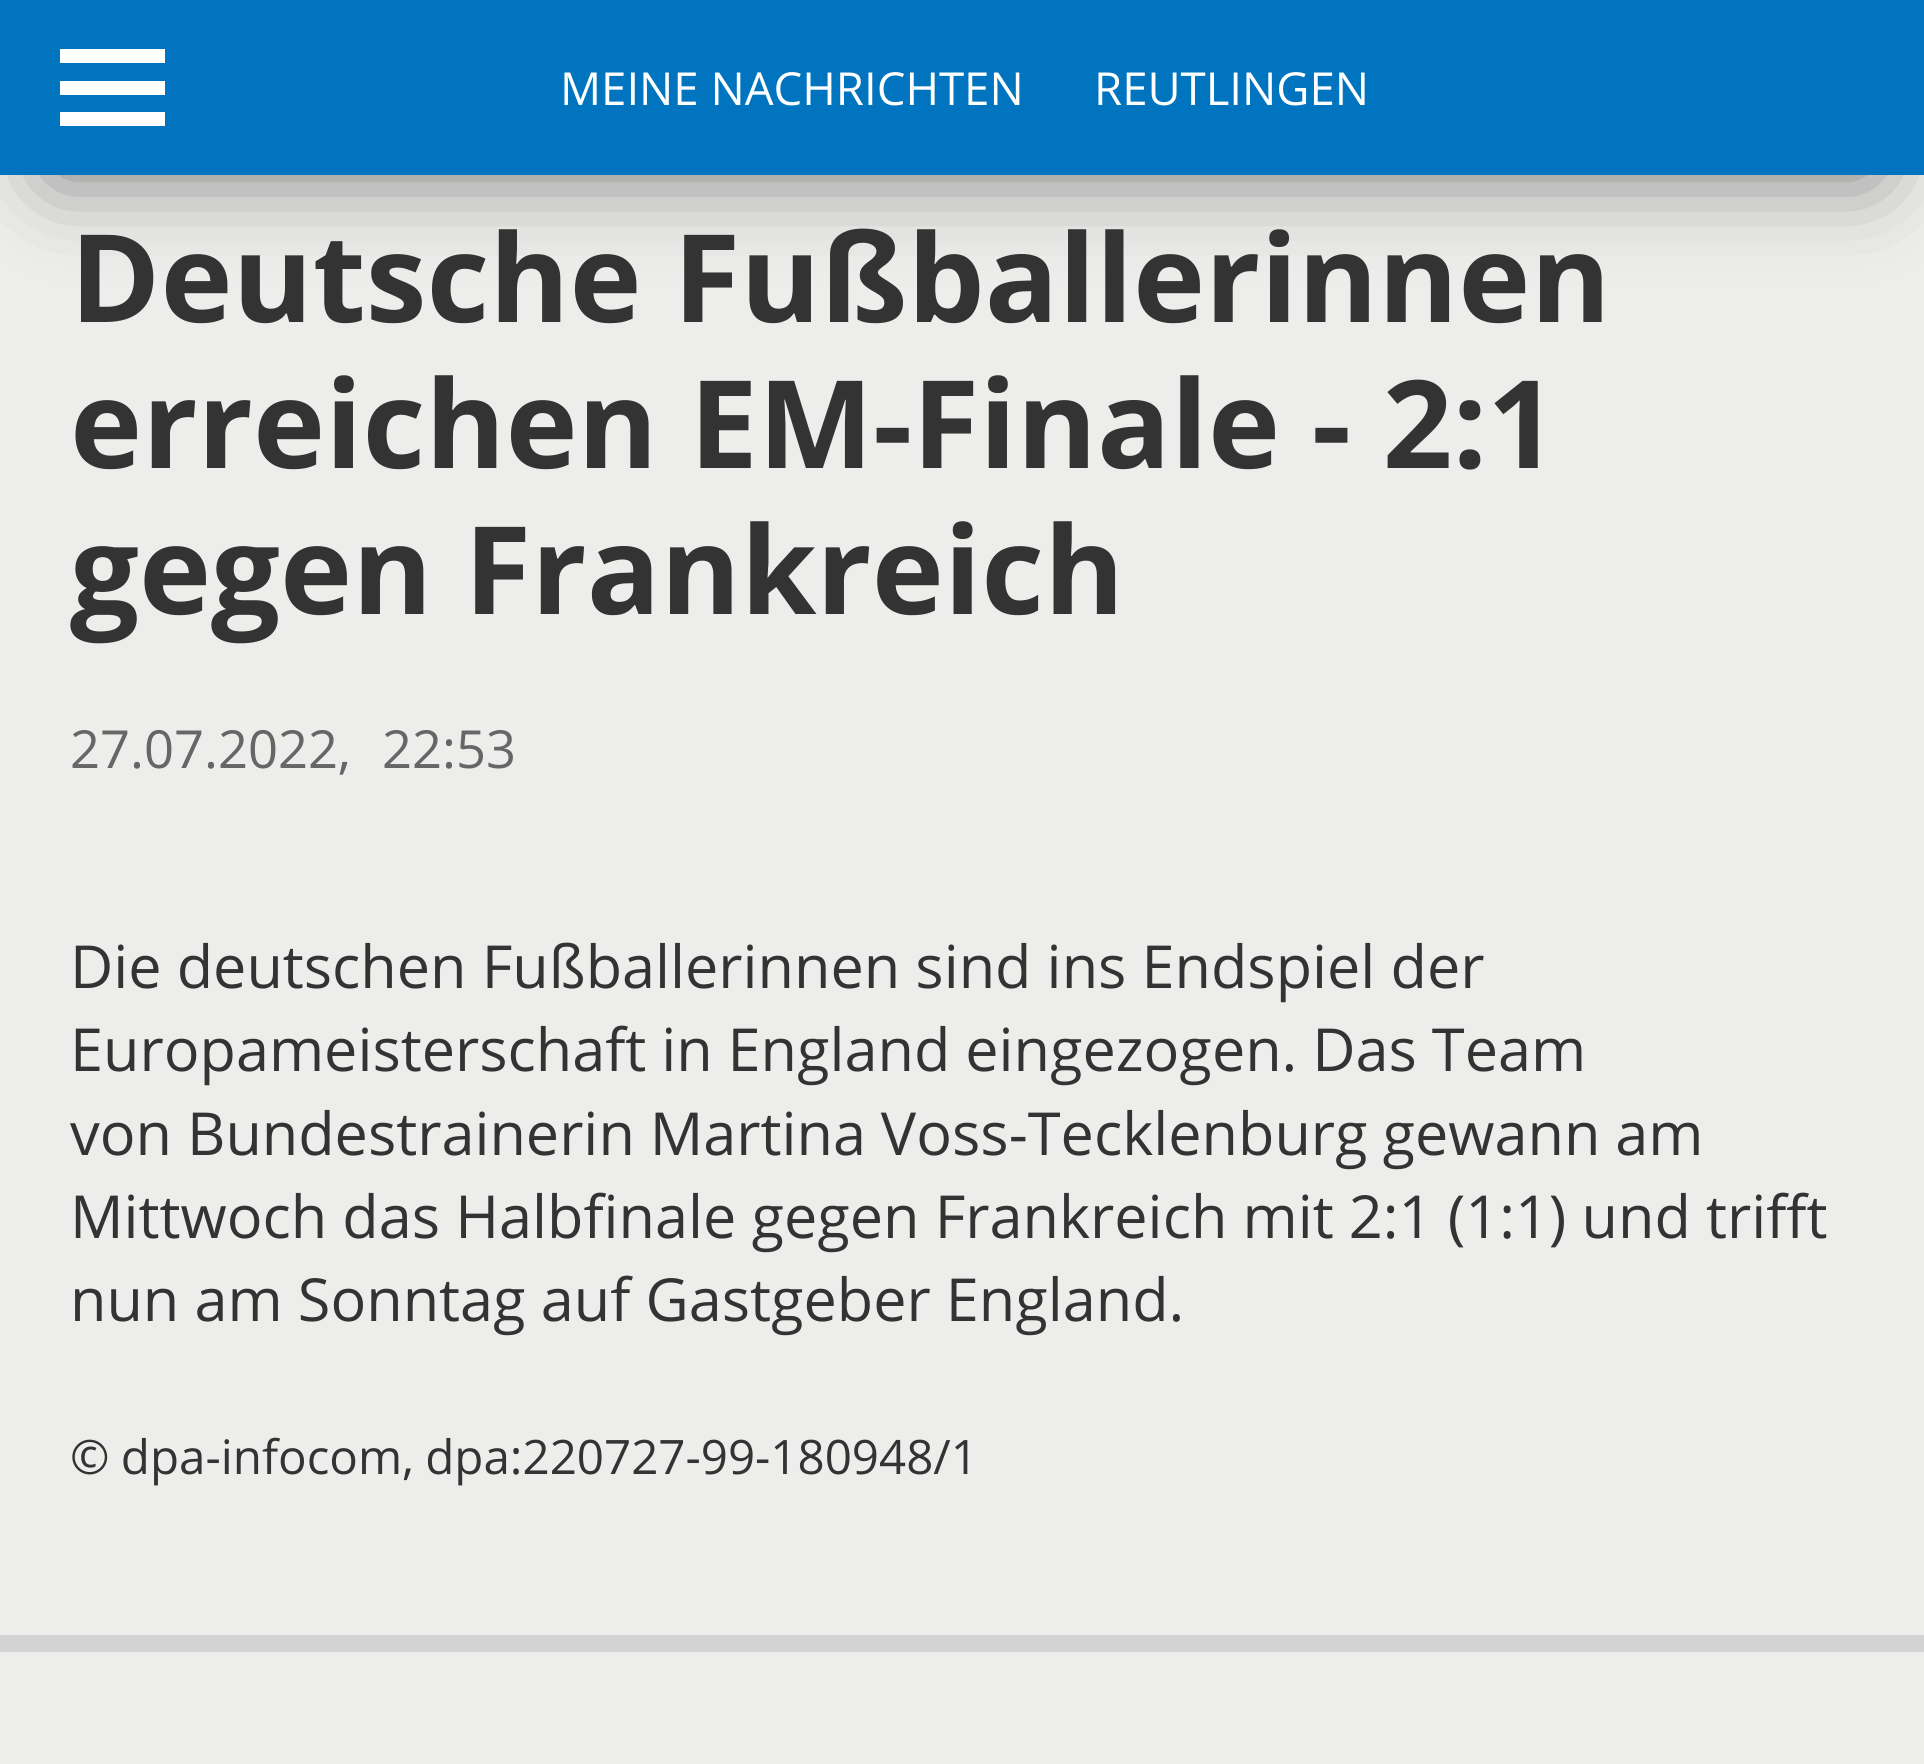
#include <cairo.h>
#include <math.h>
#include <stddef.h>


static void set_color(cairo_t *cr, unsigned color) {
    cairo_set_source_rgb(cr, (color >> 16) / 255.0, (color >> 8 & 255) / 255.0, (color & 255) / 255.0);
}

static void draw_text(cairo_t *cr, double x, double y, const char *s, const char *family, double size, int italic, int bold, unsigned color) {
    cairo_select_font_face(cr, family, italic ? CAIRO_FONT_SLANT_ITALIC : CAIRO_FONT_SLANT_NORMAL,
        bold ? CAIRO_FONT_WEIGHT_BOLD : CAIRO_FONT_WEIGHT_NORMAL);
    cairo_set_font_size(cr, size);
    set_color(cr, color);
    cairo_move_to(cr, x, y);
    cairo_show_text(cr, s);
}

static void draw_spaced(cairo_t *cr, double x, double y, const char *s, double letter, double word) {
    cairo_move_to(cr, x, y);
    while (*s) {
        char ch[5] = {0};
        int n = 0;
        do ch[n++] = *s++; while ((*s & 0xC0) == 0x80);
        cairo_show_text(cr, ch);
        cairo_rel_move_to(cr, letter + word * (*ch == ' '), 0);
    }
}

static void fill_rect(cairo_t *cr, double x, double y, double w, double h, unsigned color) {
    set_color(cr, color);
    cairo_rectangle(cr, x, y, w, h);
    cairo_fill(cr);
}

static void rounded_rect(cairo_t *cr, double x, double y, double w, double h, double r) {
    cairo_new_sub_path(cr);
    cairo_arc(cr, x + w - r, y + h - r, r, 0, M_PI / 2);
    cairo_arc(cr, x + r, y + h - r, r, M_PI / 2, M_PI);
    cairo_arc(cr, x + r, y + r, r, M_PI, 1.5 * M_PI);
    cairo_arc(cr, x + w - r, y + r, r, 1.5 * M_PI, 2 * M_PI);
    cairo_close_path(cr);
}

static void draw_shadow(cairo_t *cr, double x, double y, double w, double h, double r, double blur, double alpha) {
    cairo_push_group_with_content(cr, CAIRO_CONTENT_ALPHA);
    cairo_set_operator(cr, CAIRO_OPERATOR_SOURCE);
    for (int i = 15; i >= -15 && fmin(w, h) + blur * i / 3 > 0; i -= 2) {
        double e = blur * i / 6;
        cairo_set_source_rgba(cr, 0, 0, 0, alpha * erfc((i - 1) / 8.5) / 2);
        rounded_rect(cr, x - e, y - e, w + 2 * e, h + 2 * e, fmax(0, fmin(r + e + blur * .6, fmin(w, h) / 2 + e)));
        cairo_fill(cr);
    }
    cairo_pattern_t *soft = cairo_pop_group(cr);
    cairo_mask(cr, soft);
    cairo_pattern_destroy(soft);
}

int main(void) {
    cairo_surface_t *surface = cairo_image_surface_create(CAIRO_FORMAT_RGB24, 1924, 1764);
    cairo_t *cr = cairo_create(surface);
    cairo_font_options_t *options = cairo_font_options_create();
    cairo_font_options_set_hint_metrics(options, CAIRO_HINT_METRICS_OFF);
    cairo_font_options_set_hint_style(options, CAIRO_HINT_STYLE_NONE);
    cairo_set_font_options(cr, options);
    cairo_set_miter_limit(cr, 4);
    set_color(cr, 0xEDEDEC);
    cairo_paint(cr);
    set_color(cr, 0x000000);
    draw_shadow(cr, 53, 105, 1820, 70, 0, 44, 0.5);
    fill_rect(cr, 0, 0, 1924, 175, 0x0074BE);
    fill_rect(cr, 60, 81, 105, 14, 0xFFFFFF);
    fill_rect(cr, 60, 49, 105, 14, 0xFFFFFF);
    fill_rect(cr, 60, 112, 105, 14, 0xFFFFFF);
    draw_text(cr, 560, 105, "MEINE NACHRICHTEN", "Open Sans", 45.5, 0, 0, 0xFFFFFF);
    draw_text(cr, 1094, 105, "REUTLINGEN", "Open Sans", 45.5, 0, 0, 0xFFFFFF);
    draw_text(cr, 70, 322, "Deutsche Fußballerinnen", "Open Sans", 122.1, 0, 1, 0x333333);
    draw_text(cr, 70, 468, "erreichen EM-Finale - 2:1", "Open Sans", 122.1, 0, 1, 0x333333);
    draw_text(cr, 70, 614, "gegen Frankreich", "Open Sans", 122.1, 0, 1, 0x333333);
    draw_text(cr, 70, 768, "27.07.2022,", "Open Sans", 52.5, 0, 0, 0x666666);
    draw_text(cr, 382, 768, "22:53", "Open Sans", 52.5, 0, 0, 0x666666);
    cairo_set_font_size(cr, 59.35);
    set_color(cr, 0x333333);
    draw_spaced(cr, 70, 988, "Die deutschen Fußballerinnen sind ins Endspiel der", 0, -0.25);
    draw_spaced(cr, 70, 1071, "Europameisterschaft in England eingezogen. Das Team", 0, -0.5);
    draw_spaced(cr, 70, 1155, "von Bundestrainerin Martina Voss-Tecklenburg gewann am", 0, -0.5);
    draw_spaced(cr, 70, 1238, "Mittwoch das Halbfinale gegen Frankreich mit 2:1 (1:1) und trifft", 0, -0.25);
    draw_spaced(cr, 70, 1321, "nun am Sonntag auf Gastgeber England.", 0, -0.25);
    cairo_set_font_size(cr, 47.5);
    draw_spaced(cr, 70, 1474, "© dpa-infocom, dpa:220727-99-180948/1", 0, -1);
    fill_rect(cr, 0, 1635, 1924, 17, 0xD3D3D4);
    cairo_surface_write_to_png(surface, "output.png");
    cairo_font_options_destroy(options);
    cairo_destroy(cr);
    cairo_surface_destroy(surface);
    return 0;
}
